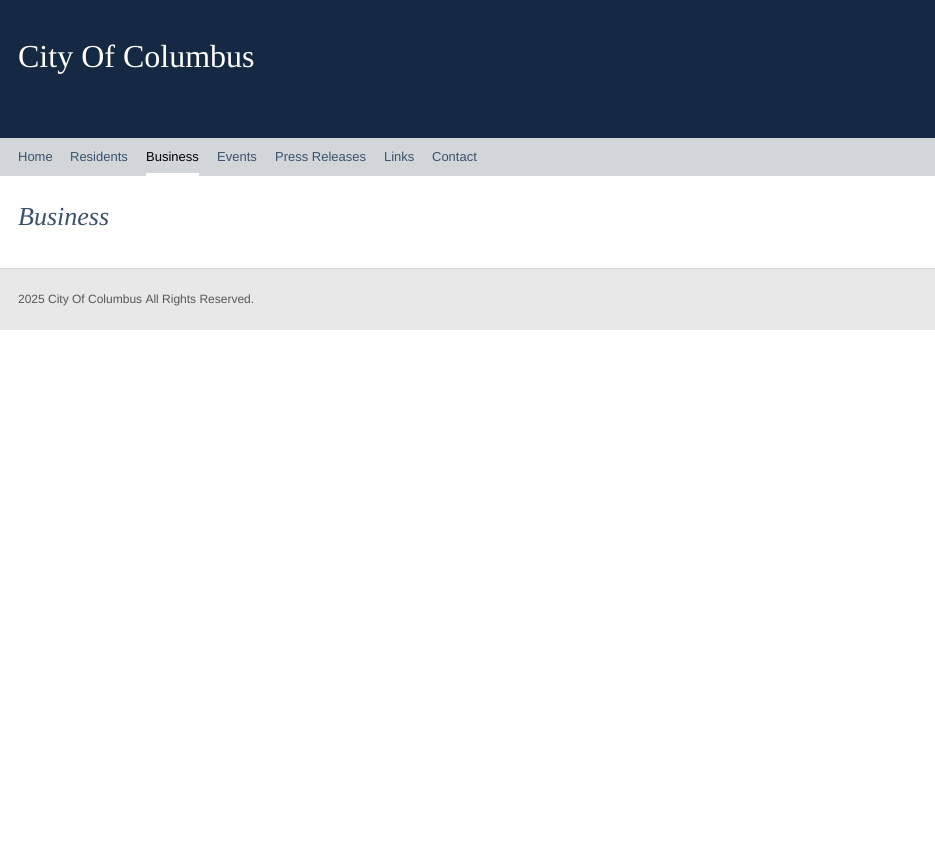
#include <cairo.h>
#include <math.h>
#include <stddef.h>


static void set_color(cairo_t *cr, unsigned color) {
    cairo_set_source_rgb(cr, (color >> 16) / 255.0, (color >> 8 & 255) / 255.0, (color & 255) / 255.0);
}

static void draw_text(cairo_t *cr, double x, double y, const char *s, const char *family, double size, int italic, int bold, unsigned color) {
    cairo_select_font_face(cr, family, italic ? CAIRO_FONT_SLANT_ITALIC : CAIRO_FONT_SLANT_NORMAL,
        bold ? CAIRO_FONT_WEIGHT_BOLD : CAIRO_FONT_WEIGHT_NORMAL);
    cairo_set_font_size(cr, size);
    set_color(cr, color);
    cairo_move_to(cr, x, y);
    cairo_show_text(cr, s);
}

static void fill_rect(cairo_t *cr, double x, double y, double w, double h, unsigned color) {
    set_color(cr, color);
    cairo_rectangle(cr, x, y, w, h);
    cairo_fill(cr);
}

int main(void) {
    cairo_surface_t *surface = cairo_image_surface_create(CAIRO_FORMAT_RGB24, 935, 842);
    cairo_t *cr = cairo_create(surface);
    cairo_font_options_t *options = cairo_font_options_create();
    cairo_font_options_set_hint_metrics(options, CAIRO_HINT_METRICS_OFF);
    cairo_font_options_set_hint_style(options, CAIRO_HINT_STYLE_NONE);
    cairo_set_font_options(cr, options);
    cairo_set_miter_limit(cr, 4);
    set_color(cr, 0xFFFFFF);
    cairo_paint(cr);
    fill_rect(cr, 0, 0, 935, 138, 0x152942);
    draw_text(cr, 18, 67, "City Of Columbus", "Liberation Serif", 32, 0, 0, 0xFFFFFF);
    fill_rect(cr, 0, 138, 935, 38, 0xD2D6D8);
    draw_text(cr, 18, 161, "Home", "Liberation Sans", 13, 0, 0, 0x3B506B);
    draw_text(cr, 70, 161, "Residents", "Liberation Sans", 13, 0, 0, 0x3B506B);
    fill_rect(cr, 146, 173, 53, 3, 0xFFFFFF);
    draw_text(cr, 146, 161, "Business", "Liberation Sans", 13, 0, 0, 0x000000);
    draw_text(cr, 217, 161, "Events", "Liberation Sans", 13, 0, 0, 0x3B506B);
    draw_text(cr, 275, 161, "Press Releases", "Liberation Sans", 13, 0, 0, 0x3B506B);
    draw_text(cr, 384, 161, "Links", "Liberation Sans", 13, 0, 0, 0x3B506B);
    draw_text(cr, 432, 161, "Contact", "Liberation Sans", 13, 0, 0, 0x3B506B);
    draw_text(cr, 18, 225, "Business", "Liberation Serif", 26, 1, 0, 0x3B506B);
    fill_rect(cr, 0, 269, 935, 61, 0xE8E8E8);
    fill_rect(cr, 0, 268, 935, 1, 0xD2D6D8);
    draw_text(cr, 18, 303, "2025 City Of Columbus All Rights Reserved.", "Liberation Sans", 12, 0, 0, 0x565656);
    cairo_surface_write_to_png(surface, "output.png");
    cairo_font_options_destroy(options);
    cairo_destroy(cr);
    cairo_surface_destroy(surface);
    return 0;
}
